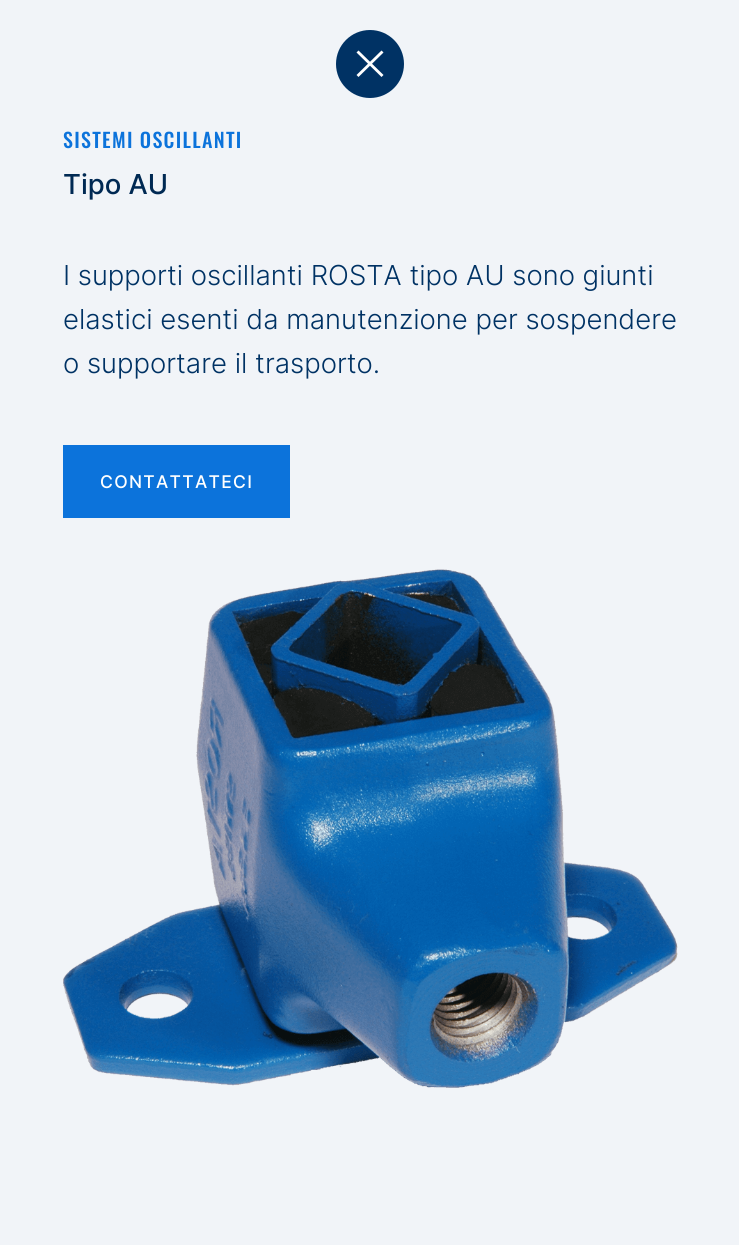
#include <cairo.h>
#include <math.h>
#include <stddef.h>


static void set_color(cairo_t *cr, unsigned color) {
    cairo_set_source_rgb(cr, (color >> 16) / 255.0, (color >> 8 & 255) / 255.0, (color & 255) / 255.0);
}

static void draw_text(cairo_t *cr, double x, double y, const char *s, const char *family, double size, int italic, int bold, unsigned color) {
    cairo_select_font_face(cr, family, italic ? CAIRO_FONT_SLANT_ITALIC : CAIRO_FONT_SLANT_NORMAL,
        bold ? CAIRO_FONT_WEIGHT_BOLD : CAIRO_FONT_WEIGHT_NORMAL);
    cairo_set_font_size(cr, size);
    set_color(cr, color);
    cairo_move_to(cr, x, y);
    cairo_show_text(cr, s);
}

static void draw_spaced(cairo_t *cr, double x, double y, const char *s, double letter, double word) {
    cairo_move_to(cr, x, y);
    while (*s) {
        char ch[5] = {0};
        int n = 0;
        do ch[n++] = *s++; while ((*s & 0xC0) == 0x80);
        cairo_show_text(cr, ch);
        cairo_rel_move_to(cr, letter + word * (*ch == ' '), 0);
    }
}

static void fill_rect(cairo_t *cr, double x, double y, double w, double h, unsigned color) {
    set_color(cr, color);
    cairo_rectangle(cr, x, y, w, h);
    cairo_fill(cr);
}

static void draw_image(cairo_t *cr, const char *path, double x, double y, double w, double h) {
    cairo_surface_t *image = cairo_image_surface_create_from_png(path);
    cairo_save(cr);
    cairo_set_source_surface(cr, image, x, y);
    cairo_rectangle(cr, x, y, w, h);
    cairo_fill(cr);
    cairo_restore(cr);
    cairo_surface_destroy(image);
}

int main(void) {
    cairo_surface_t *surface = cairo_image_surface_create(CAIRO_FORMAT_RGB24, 739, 1259);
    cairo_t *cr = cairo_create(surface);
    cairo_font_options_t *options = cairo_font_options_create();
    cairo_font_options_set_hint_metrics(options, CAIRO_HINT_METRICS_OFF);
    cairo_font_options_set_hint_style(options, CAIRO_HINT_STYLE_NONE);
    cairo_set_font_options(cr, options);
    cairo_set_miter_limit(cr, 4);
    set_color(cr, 0xFFFFFF);
    cairo_paint(cr);
    fill_rect(cr, 0, 0, 739, 1245, 0xF1F4F8);
    set_color(cr, 0x003264);
    cairo_arc(cr, 370, 64, 34, 0, 2 * M_PI);
    cairo_fill(cr);
    set_color(cr, 0xFFFFFF);
    cairo_new_path(cr);
    cairo_move_to(cr, 358.5, 50.5);
    cairo_line_to(cr, 383.5, 75);
    cairo_line_to(cr, 381.5, 77);
    cairo_line_to(cr, 356.5, 52.5);
    cairo_close_path(cr);
    cairo_fill(cr);
    cairo_new_path(cr);
    cairo_move_to(cr, 356.5, 75);
    cairo_line_to(cr, 381.5, 50.5);
    cairo_line_to(cr, 383.5, 52.5);
    cairo_line_to(cr, 358.5, 77);
    cairo_close_path(cr);
    cairo_fill(cr);
    cairo_select_font_face(cr, "Oswald Medium", CAIRO_FONT_SLANT_NORMAL, CAIRO_FONT_WEIGHT_NORMAL);
    cairo_set_font_size(cr, 20);
    set_color(cr, 0x0C73DB);
    draw_spaced(cr, 63, 148, "SISTEMI OSCILLANTI", 1.3, 0);
    draw_text(cr, 63, 194, "Tipo AU", "Inter Medium", 27.5, 0, 0, 0x002953);
    draw_text(cr, 63, 285, "I supporti oscillanti ROSTA tipo AU sono giunti", "Inter Light", 27.5, 0, 0, 0x003264);
    draw_text(cr, 63, 329, "elastici esenti da manutenzione per sospendere", "Inter Light", 27.5, 0, 0, 0x003264);
    draw_text(cr, 63, 373, "o supportare il trasporto.", "Inter Light", 27.5, 0, 0, 0x003264);
    fill_rect(cr, 63, 445, 227, 73, 0x0C73DB);
    cairo_select_font_face(cr, "Inter Medium", CAIRO_FONT_SLANT_NORMAL, CAIRO_FONT_WEIGHT_NORMAL);
    cairo_set_font_size(cr, 17.5);
    set_color(cr, 0xFFFFFF);
    draw_spaced(cr, 100, 488, "CONTATTATECI", 1.3, 0);
    draw_image(cr, "assets/img1.png", 63, 569, 615, 519);
    cairo_surface_write_to_png(surface, "output.png");
    cairo_font_options_destroy(options);
    cairo_destroy(cr);
    cairo_surface_destroy(surface);
    return 0;
}
